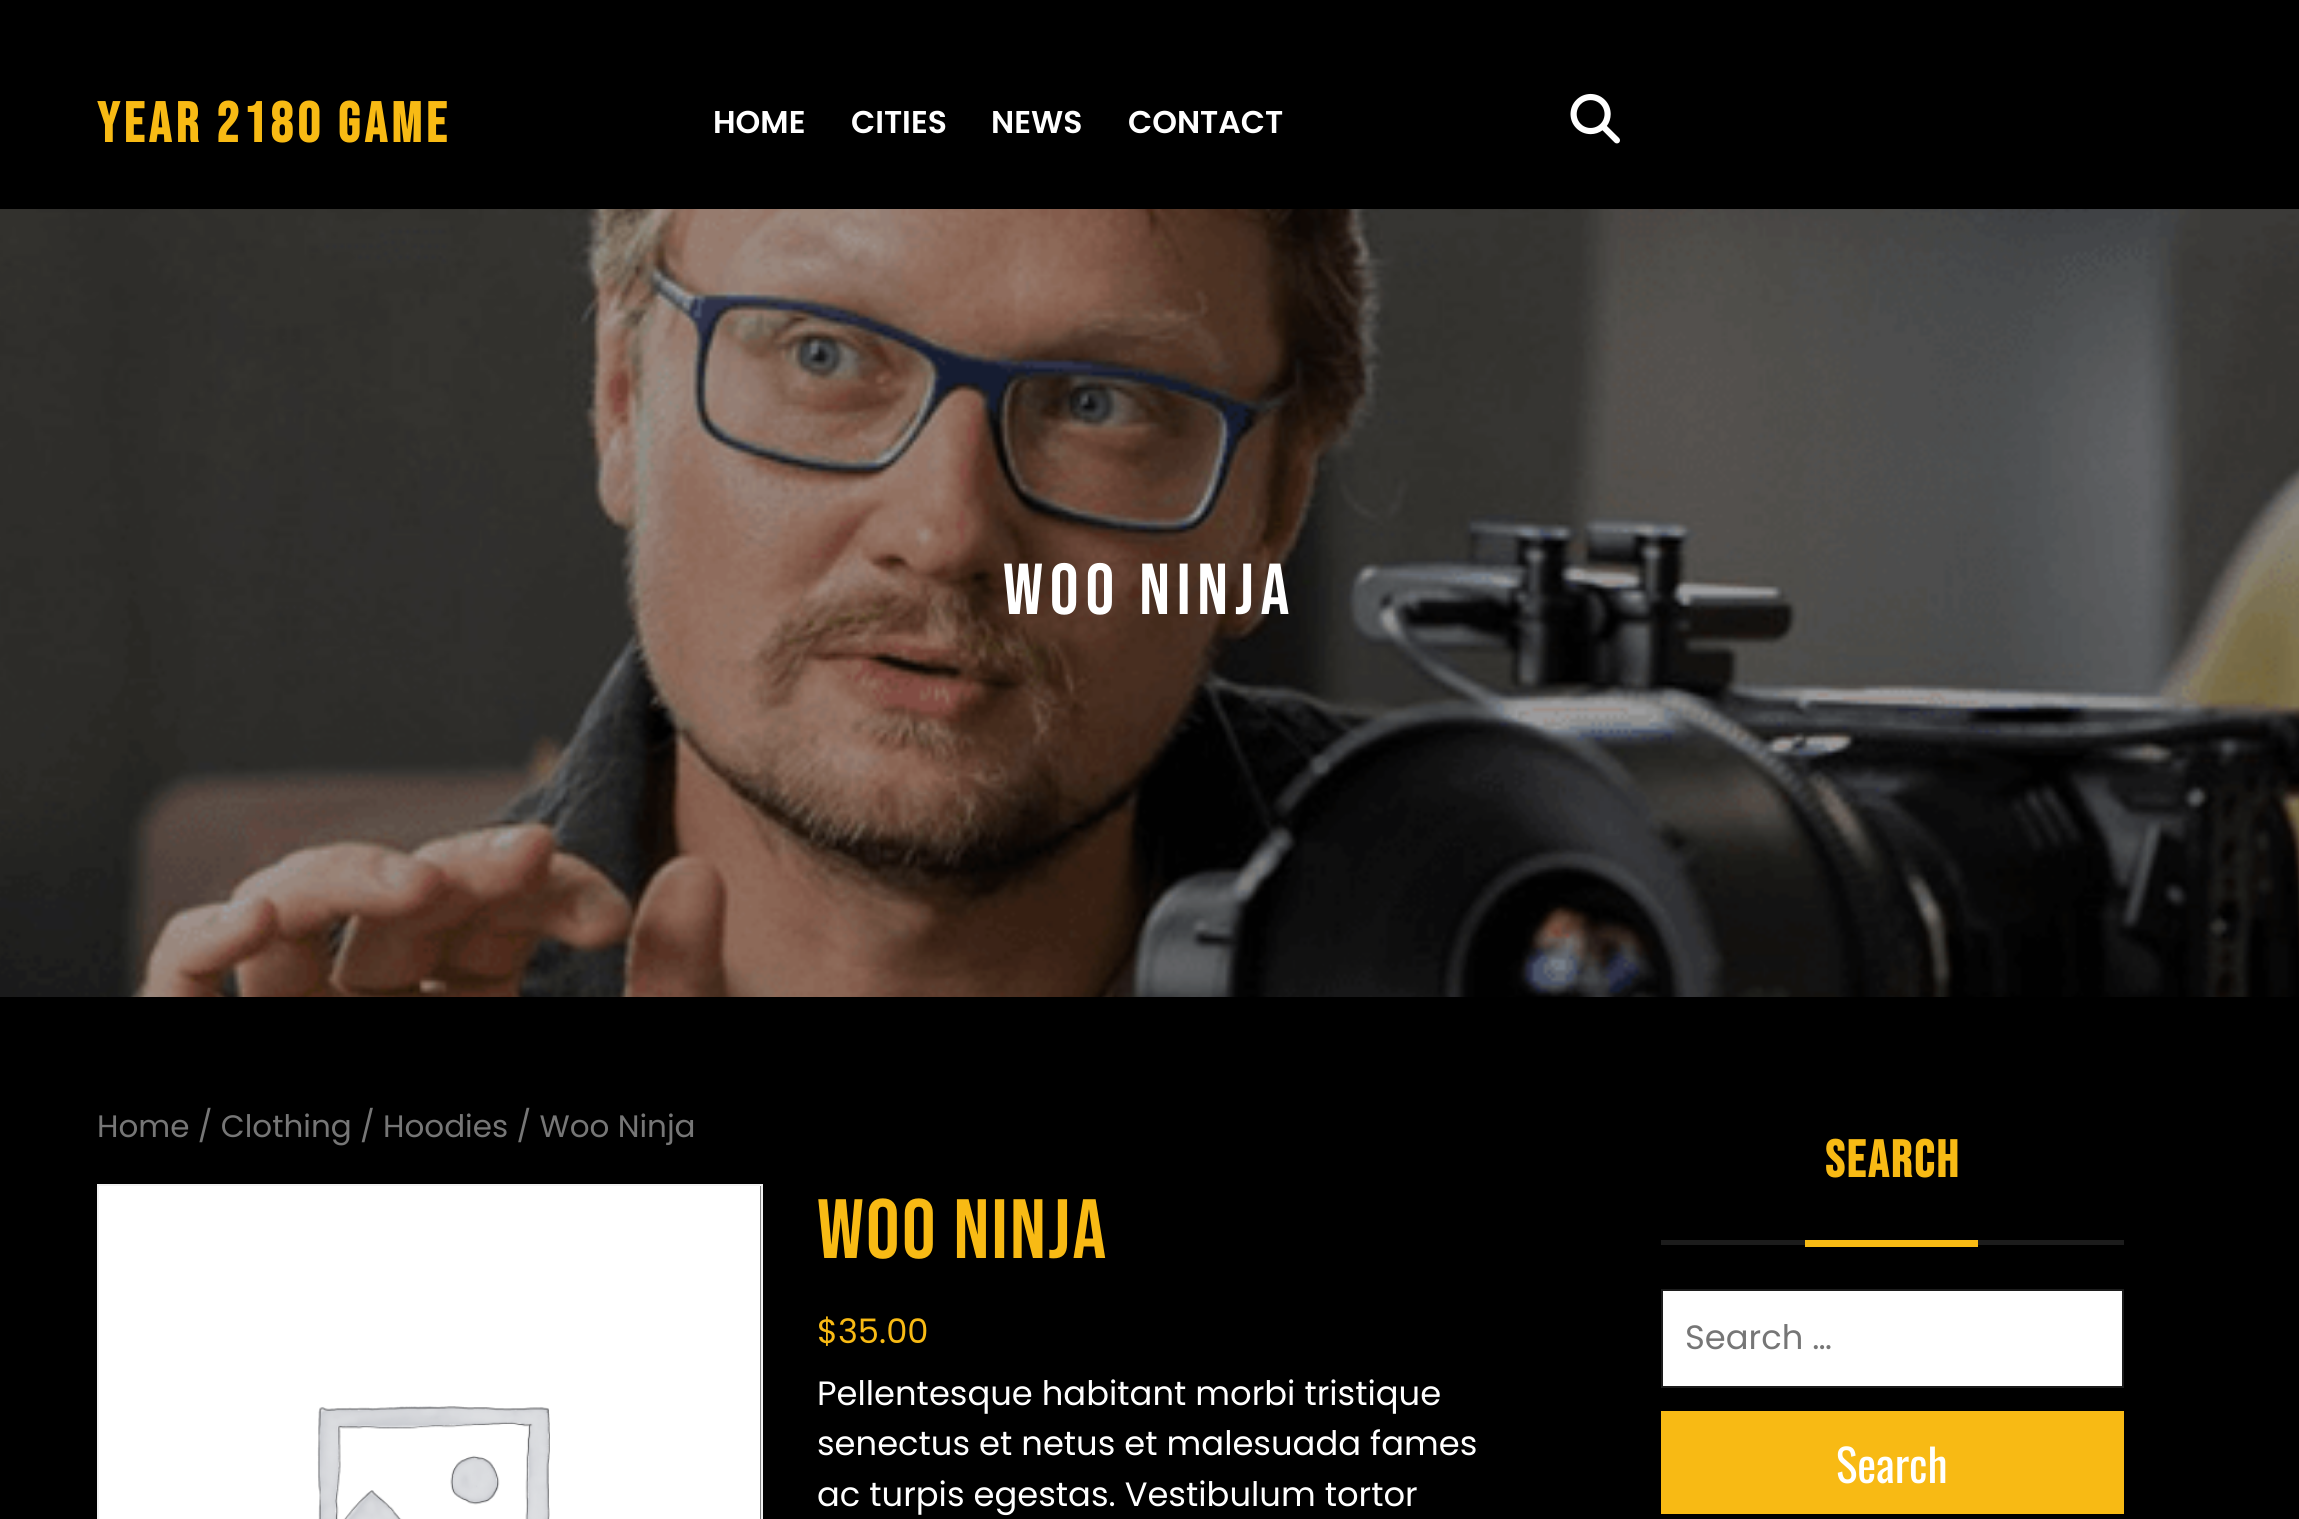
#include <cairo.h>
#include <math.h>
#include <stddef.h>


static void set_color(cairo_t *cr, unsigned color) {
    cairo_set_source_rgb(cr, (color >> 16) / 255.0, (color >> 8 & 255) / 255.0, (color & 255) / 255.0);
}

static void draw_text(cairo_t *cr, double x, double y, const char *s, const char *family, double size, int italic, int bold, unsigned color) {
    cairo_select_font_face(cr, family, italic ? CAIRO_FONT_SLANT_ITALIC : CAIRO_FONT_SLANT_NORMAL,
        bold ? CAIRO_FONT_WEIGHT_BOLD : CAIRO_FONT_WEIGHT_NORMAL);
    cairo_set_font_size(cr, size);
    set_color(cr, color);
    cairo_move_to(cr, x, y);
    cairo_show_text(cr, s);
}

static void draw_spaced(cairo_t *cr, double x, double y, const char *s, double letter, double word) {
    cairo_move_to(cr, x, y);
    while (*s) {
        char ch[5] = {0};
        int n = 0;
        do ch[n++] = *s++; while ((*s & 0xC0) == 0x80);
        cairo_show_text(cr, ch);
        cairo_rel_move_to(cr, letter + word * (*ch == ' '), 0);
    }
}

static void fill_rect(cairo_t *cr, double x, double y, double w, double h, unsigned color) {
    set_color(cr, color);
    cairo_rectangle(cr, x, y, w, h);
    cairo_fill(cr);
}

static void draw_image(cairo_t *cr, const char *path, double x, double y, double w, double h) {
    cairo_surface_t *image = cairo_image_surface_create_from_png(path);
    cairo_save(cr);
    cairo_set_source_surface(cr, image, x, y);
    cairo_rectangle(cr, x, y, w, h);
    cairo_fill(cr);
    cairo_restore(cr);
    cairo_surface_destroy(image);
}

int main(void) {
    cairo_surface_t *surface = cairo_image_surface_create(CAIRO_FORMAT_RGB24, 2299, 1519);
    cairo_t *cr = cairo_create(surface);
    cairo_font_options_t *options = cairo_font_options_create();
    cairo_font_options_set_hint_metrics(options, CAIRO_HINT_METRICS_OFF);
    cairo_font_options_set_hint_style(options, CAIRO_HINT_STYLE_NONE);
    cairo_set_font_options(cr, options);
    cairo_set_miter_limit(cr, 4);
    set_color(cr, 0x000000);
    cairo_paint(cr);
    cairo_select_font_face(cr, "Bebas Neue", CAIRO_FONT_SLANT_NORMAL, CAIRO_FONT_WEIGHT_BOLD);
    cairo_set_font_size(cr, 56.25);
    set_color(cr, 0xF8BA14);
    draw_spaced(cr, 97, 142, "YEAR 2180 GAME", 4.5, 0);
    draw_text(cr, 713, 133, "HOME", "Poppins SemiBold", 31.5, 0, 0, 0xFFFFFF);
    draw_text(cr, 851, 133, "CITIES", "Poppins SemiBold", 31.5, 0, 0, 0xFFFFFF);
    draw_text(cr, 991, 133, "NEWS", "Poppins SemiBold", 31.5, 0, 0, 0xFFFFFF);
    draw_text(cr, 1128, 133, "CONTACT", "Poppins SemiBold", 31.5, 0, 0, 0xFFFFFF);
    draw_image(cr, "assets/img1.png", 1570, 93, 50, 51);
    draw_image(cr, "assets/img2.png", 0, 209, 2299, 788);
    cairo_select_font_face(cr, "Bebas Neue", CAIRO_FONT_SLANT_NORMAL, CAIRO_FONT_WEIGHT_NORMAL);
    cairo_set_font_size(cr, 72);
    draw_spaced(cr, 1003, 614, "WOO NINJA", 6.75, 0);
    draw_text(cr, 97, 1137, "Home / Clothing / Hoodies / Woo Ninja", "Poppins", 31, 0, 0, 0x767676);
    cairo_rectangle(cr, 98, 1185, 664, 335);
    set_color(cr, 0xF2F2F2);
    cairo_stroke(cr);
    draw_image(cr, "assets/img3.png", 99, 1186, 662, 333);
    cairo_select_font_face(cr, "Bebas Neue", CAIRO_FONT_SLANT_NORMAL, CAIRO_FONT_WEIGHT_NORMAL);
    cairo_set_font_size(cr, 84);
    set_color(cr, 0xF8BA14);
    draw_spaced(cr, 817, 1258, "Woo Ninja", 2.25, 0);
    draw_text(cr, 817, 1343, "$35.00", "Poppins", 33.75, 0, 0, 0xF8BA14);
    draw_text(cr, 817, 1405, "Pellentesque habitant morbi tristique", "Poppins", 33.75, 0, 0, 0xFFFFFF);
    draw_text(cr, 817, 1455, "senectus et netus et malesuada fames", "Poppins", 33.75, 0, 0, 0xFFFFFF);
    draw_text(cr, 817, 1506, "ac turpis egestas. Vestibulum tortor", "Poppins", 33.75, 0, 0, 0xFFFFFF);
    fill_rect(cr, 1661, 1240, 463, 5, 0x1C1C1C);
    cairo_select_font_face(cr, "Bebas Neue", CAIRO_FONT_SLANT_NORMAL, CAIRO_FONT_WEIGHT_BOLD);
    cairo_set_font_size(cr, 52);
    set_color(cr, 0xF8BA14);
    draw_spaced(cr, 1825, 1177, "SEARCH", 2.25, 0);
    fill_rect(cr, 1805, 1240, 173, 7, 0xF8BA14);
    set_color(cr, 0xFFFFFF);
    cairo_rectangle(cr, 1662, 1290, 461, 97);
    cairo_fill_preserve(cr);
    set_color(cr, 0x1C1C1C);
    cairo_stroke(cr);
    draw_text(cr, 1685, 1349, "Search …", "Poppins", 33.75, 0, 0, 0x767676);
    fill_rect(cr, 1661, 1411, 463, 103, 0xF8BA14);
    draw_text(cr, 1836, 1483, "Search", "Oswald", 45, 0, 0, 0xFFFFFF);
    cairo_surface_write_to_png(surface, "output.png");
    cairo_font_options_destroy(options);
    cairo_destroy(cr);
    cairo_surface_destroy(surface);
    return 0;
}
